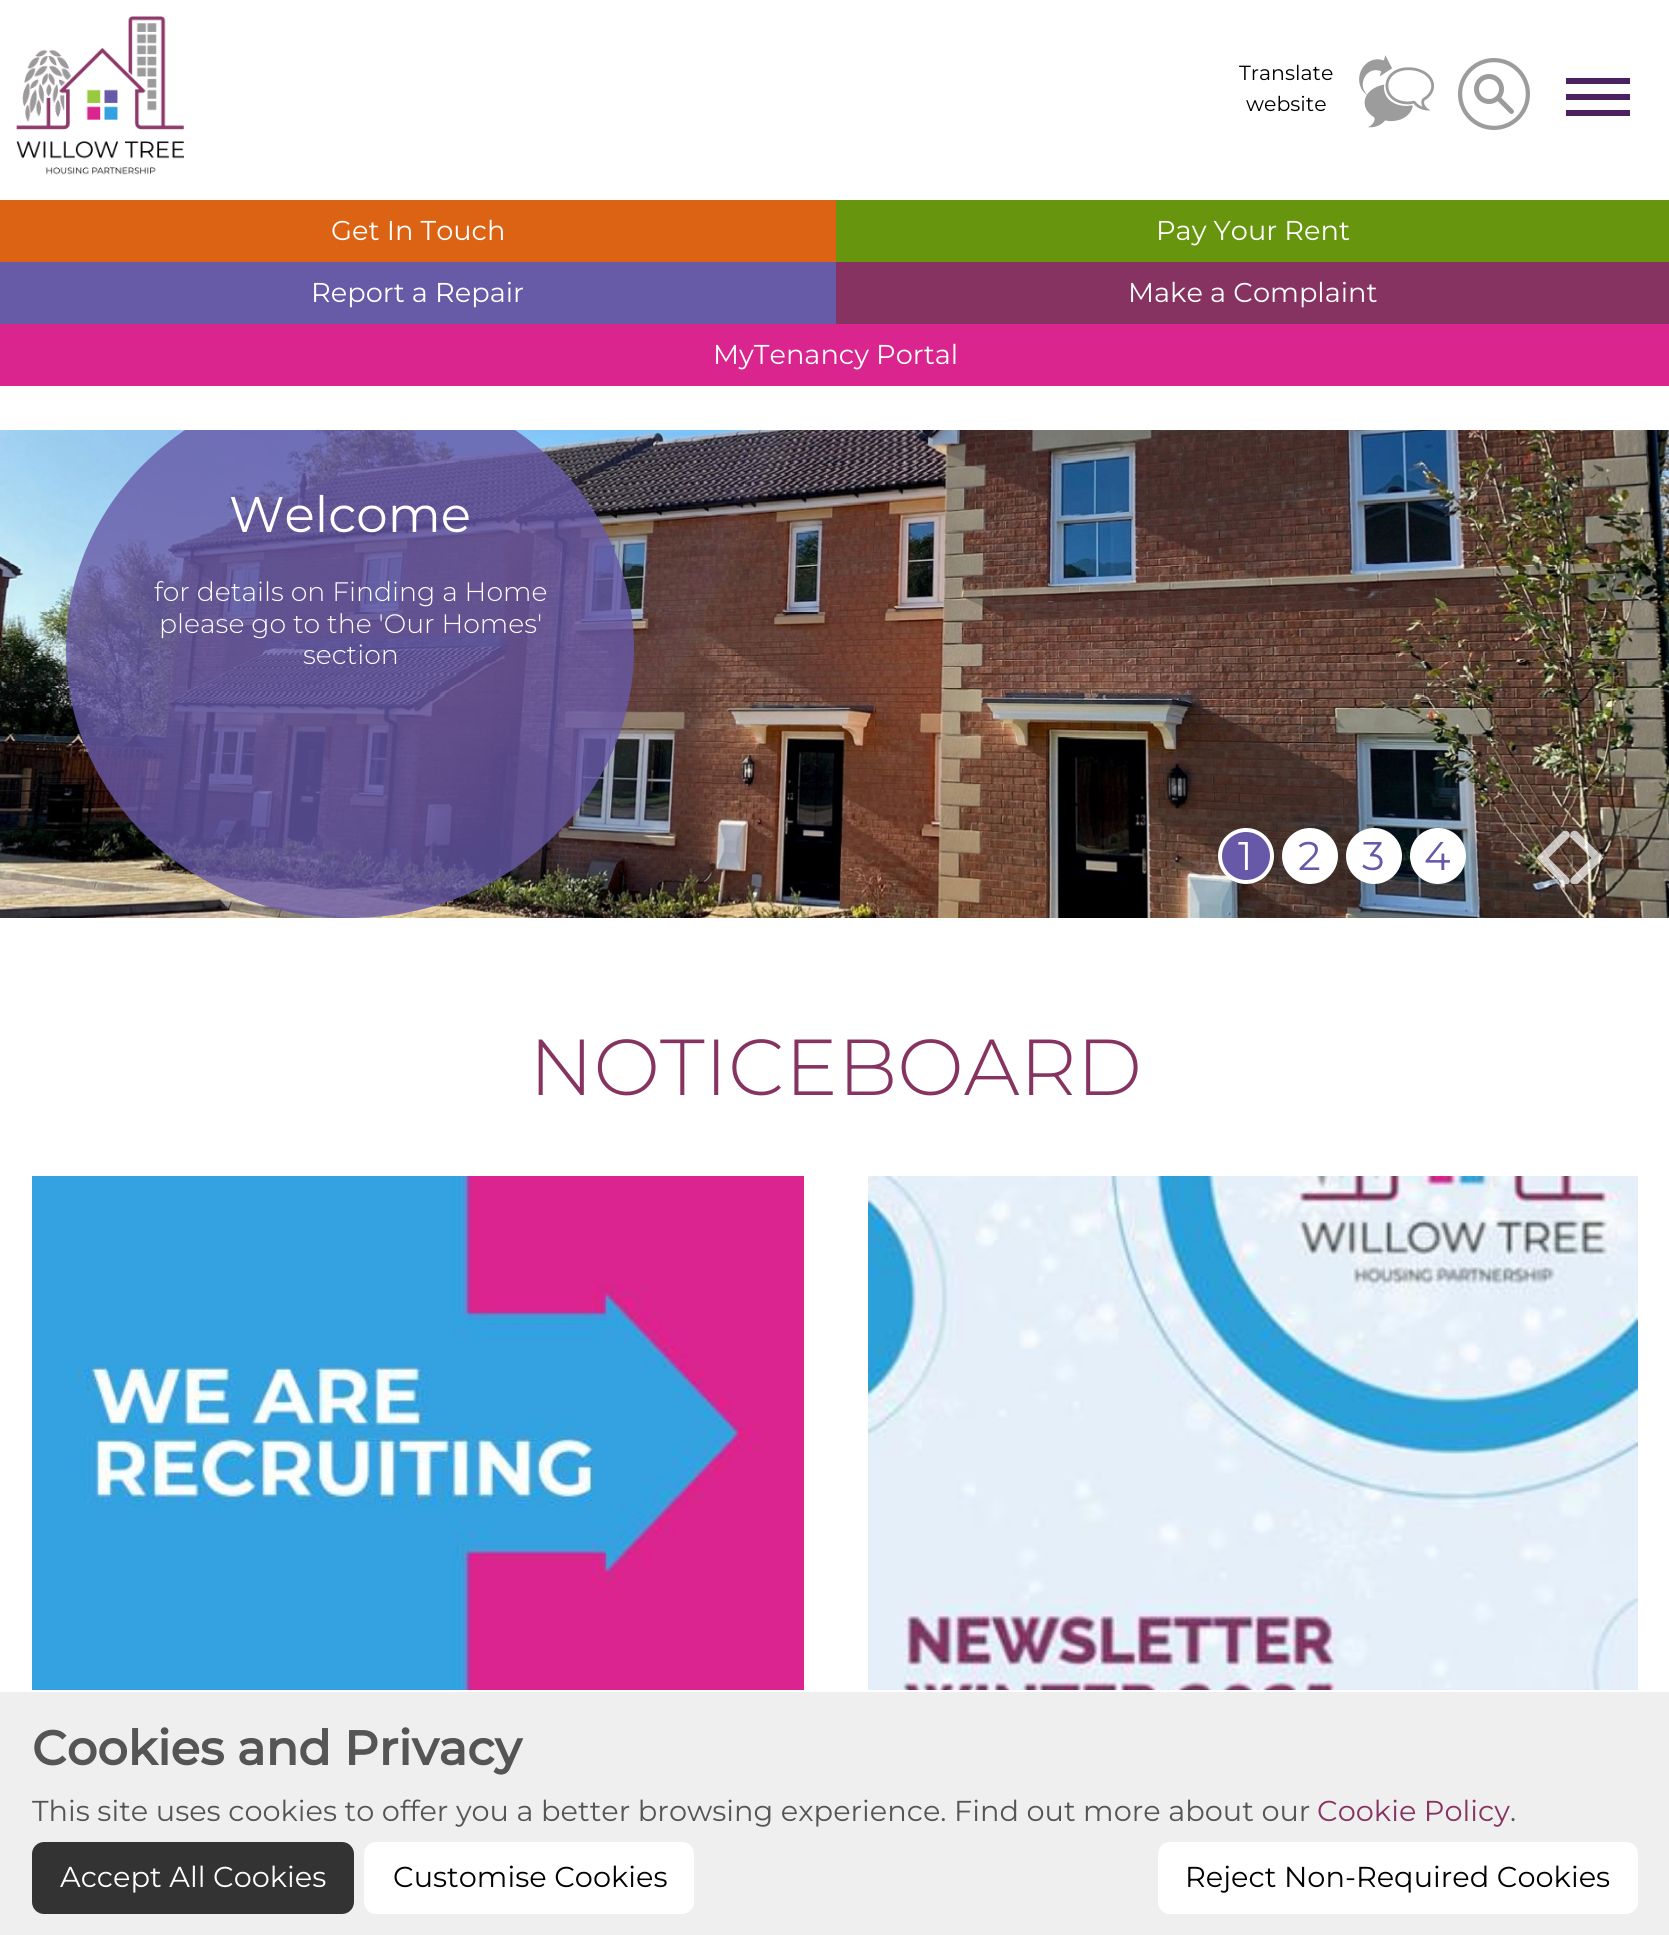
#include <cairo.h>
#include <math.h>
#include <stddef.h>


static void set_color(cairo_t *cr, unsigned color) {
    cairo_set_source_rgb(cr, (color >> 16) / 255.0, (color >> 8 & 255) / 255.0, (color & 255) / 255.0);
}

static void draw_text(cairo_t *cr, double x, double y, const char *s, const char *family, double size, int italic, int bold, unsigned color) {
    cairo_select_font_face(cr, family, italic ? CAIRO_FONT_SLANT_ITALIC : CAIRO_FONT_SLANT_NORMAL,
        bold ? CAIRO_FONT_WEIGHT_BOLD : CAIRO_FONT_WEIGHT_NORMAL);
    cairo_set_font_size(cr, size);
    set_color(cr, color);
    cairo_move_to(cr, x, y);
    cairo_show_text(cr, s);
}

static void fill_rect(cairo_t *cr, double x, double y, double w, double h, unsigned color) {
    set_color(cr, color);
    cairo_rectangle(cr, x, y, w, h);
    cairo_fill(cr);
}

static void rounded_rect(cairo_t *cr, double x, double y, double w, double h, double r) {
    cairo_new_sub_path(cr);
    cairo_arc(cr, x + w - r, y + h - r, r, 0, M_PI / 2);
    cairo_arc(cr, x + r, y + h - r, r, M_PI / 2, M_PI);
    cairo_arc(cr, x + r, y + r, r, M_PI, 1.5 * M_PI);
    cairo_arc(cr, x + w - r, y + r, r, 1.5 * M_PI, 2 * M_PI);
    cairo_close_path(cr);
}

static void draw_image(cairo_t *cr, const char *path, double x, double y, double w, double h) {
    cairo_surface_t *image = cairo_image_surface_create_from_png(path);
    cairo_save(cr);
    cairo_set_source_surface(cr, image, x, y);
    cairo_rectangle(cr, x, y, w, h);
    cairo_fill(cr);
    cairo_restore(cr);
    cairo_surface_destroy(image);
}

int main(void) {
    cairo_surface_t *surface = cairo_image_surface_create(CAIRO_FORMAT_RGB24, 1669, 1935);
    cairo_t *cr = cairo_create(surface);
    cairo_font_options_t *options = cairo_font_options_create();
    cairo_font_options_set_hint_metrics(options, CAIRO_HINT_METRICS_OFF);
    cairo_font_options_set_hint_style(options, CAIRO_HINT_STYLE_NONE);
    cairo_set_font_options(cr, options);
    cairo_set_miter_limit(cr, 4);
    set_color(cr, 0xFFFFFF);
    cairo_paint(cr);
    draw_image(cr, "assets/img1.png", 16, 16, 168, 159);
    draw_text(cr, 1239, 80, "Translate", "Montserrat Thin", 20.5, 0, 0, 0x000000);
    draw_text(cr, 1246, 111, "website", "Montserrat Thin", 20.5, 0, 0, 0x000000);
    draw_image(cr, "assets/img2.png", 1359, 55, 75, 73);
    draw_image(cr, "assets/img3.png", 1458, 58, 72, 72);
    fill_rect(cr, 0, 200, 836, 62, 0xDD6314);
    draw_text(cr, 331, 240, "Get In Touch", "Montserrat Thin", 27.25, 0, 0, 0xFFFFFF);
    fill_rect(cr, 836, 200, 833, 62, 0x67950E);
    draw_text(cr, 1156, 240, "Pay Your Rent", "Montserrat Thin", 27.25, 0, 0, 0xFFFFFF);
    fill_rect(cr, 0, 262, 836, 62, 0x675AA7);
    draw_text(cr, 311, 302, "Report a Repair", "Montserrat Thin", 27.25, 0, 0, 0xFFFFFF);
    fill_rect(cr, 836, 262, 833, 62, 0x863361);
    draw_text(cr, 1128, 302, "Make a Complaint", "Montserrat Thin", 27.25, 0, 0, 0xFFFFFF);
    fill_rect(cr, 0, 324, 1669, 62, 0xD9258D);
    draw_text(cr, 713, 364, "MyTenancy Portal", "Montserrat Thin", 27.25, 0, 0, 0xFFFFFF);
    fill_rect(cr, 1566, 78, 64, 6, 0x4C215F);
    fill_rect(cr, 1566, 94, 64, 6, 0x4C215F);
    fill_rect(cr, 1566, 110, 64, 6, 0x4C215F);
    draw_image(cr, "assets/img4.png", 0, 430, 1669, 488);
    cairo_save(cr);
    cairo_rectangle(cr, 0, 430, 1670, 488);
    cairo_clip(cr);
    cairo_set_source_rgba(cr, 0.404, 0.349, 0.655, 0.8);
    cairo_new_path(cr);
    cairo_move_to(cr, 350, 380);
    cairo_curve_to(cr, 507, 380, 634, 500.5, 634, 649);
    cairo_curve_to(cr, 634, 797.5, 507, 918, 350, 918);
    cairo_curve_to(cr, 193, 918, 66, 797.5, 66, 649);
    cairo_curve_to(cr, 66, 500.5, 193, 380, 350, 380);
    cairo_close_path(cr);
    cairo_fill(cr);
    cairo_restore(cr);
    draw_text(cr, 229, 532, "Welcome", "Montserrat Thin", 50, 0, 0, 0xFFFFFF);
    draw_text(cr, 154, 601, "for details on Finding a Home", "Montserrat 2 Thin", 26.75, 0, 0, 0xFFFFFF);
    draw_text(cr, 159, 633, "please go to the 'Our Homes'", "Montserrat 2 Thin", 26.75, 0, 0, 0xFFFFFF);
    draw_text(cr, 303, 664, "section", "Montserrat 2 Thin", 26.75, 0, 0, 0xFFFFFF);
    set_color(cr, 0x6759A7);
    cairo_new_path(cr);
    cairo_arc(cr, 1246, 856, 26, 0, 2 * M_PI);
    cairo_fill_preserve(cr);
    set_color(cr, 0xFFFFFF);
    cairo_set_line_width(cr, 4);
    cairo_stroke(cr);
    draw_text(cr, 1238, 870, "1", "Montserrat Thin", 40, 0, 0, 0xFFFFFF);
    cairo_new_path(cr);
    cairo_arc(cr, 1310, 856, 26, 0, 2 * M_PI);
    cairo_fill_preserve(cr);
    cairo_stroke(cr);
    draw_text(cr, 1298, 870, "2", "Montserrat Thin", 40, 0, 0, 0x6759A7);
    set_color(cr, 0xFFFFFF);
    cairo_new_path(cr);
    cairo_arc(cr, 1374, 856, 26, 0, 2 * M_PI);
    cairo_fill_preserve(cr);
    cairo_stroke(cr);
    draw_text(cr, 1362, 870, "3", "Montserrat Thin", 40, 0, 0, 0x6759A7);
    set_color(cr, 0xFFFFFF);
    cairo_new_path(cr);
    cairo_arc(cr, 1438, 856, 26, 0, 2 * M_PI);
    cairo_fill_preserve(cr);
    cairo_stroke(cr);
    draw_text(cr, 1424, 870, "4", "Montserrat Thin", 40, 0, 0, 0x6759A7);
    draw_image(cr, "assets/img5.png", 1536, 830, 34, 54);
    draw_image(cr, "assets/img6.png", 1570, 830, 34, 54);
    draw_text(cr, 529, 1095, "NOTICEBOARD", "Montserrat 2 Thin", 79.25, 0, 0, 0x863361);
    draw_image(cr, "assets/img7.png", 32, 1176, 772, 514);
    draw_image(cr, "assets/img8.png", 868, 1176, 770, 514);
    fill_rect(cr, 0, 1692, 1669, 243, 0xEFEFEF);
    draw_text(cr, 32, 1765, "Cookies and Privacy", "Montserrat", 48, 0, 1, 0x555555);
    draw_text(cr, 32, 1821, "This site uses cookies to offer you a better browsing experience. Find out more about our", "Montserrat Thin", 28.8, 0, 0, 0x555555);
    draw_text(cr, 1317, 1821, "Cookie Policy", "Montserrat Thin", 28.8, 0, 0, 0x863361);
    draw_text(cr, 1510, 1821, ".", "Montserrat Thin", 28.8, 0, 0, 0x555555);
    set_color(cr, 0x333333);
    rounded_rect(cr, 32, 1842, 322, 72, 12);
    cairo_fill(cr);
    draw_text(cr, 60, 1887, "Accept All Cookies", "Montserrat Thin", 28.8, 0, 0, 0xFFFFFF);
    rounded_rect(cr, 364, 1842, 330, 72, 12);
    cairo_fill(cr);
    draw_text(cr, 393, 1887, "Customise Cookies", "Montserrat Thin", 28.8, 0, 0, 0x000000);
    set_color(cr, 0xFFFFFF);
    rounded_rect(cr, 1158, 1842, 480, 72, 12);
    cairo_fill(cr);
    draw_text(cr, 1185, 1887, "Reject Non-Required Cookies", "Montserrat Thin", 28.8, 0, 0, 0x000000);
    cairo_surface_write_to_png(surface, "output.png");
    cairo_font_options_destroy(options);
    cairo_destroy(cr);
    cairo_surface_destroy(surface);
    return 0;
}
